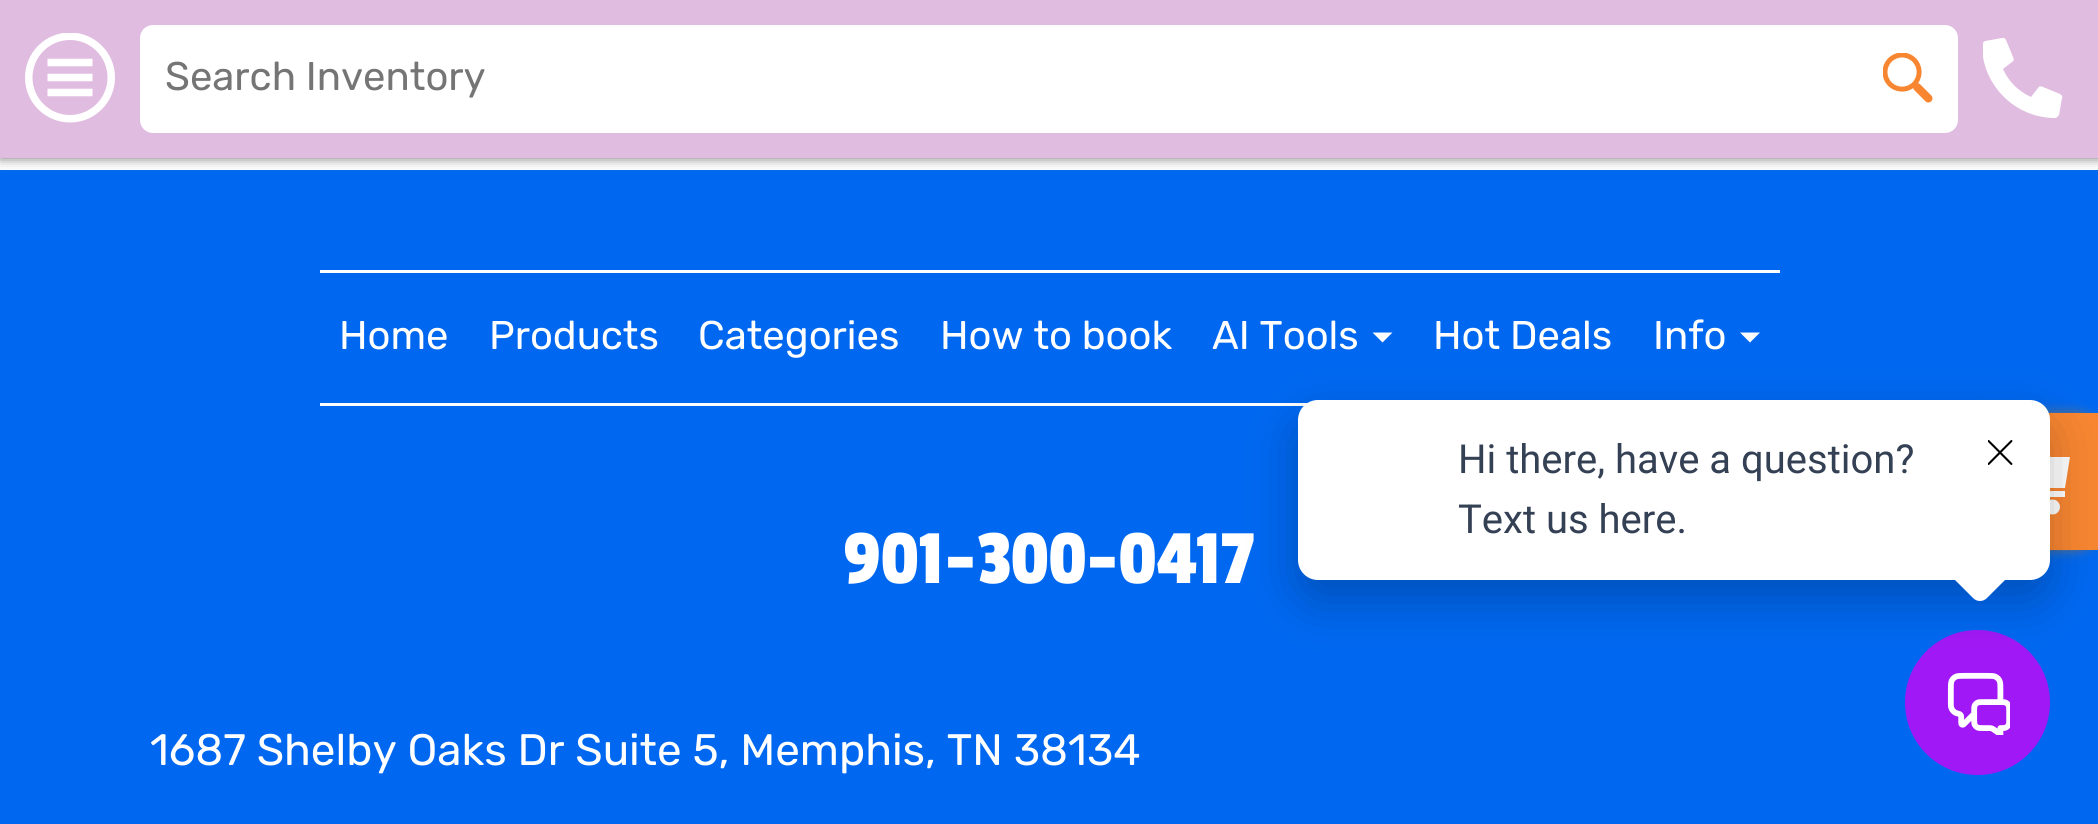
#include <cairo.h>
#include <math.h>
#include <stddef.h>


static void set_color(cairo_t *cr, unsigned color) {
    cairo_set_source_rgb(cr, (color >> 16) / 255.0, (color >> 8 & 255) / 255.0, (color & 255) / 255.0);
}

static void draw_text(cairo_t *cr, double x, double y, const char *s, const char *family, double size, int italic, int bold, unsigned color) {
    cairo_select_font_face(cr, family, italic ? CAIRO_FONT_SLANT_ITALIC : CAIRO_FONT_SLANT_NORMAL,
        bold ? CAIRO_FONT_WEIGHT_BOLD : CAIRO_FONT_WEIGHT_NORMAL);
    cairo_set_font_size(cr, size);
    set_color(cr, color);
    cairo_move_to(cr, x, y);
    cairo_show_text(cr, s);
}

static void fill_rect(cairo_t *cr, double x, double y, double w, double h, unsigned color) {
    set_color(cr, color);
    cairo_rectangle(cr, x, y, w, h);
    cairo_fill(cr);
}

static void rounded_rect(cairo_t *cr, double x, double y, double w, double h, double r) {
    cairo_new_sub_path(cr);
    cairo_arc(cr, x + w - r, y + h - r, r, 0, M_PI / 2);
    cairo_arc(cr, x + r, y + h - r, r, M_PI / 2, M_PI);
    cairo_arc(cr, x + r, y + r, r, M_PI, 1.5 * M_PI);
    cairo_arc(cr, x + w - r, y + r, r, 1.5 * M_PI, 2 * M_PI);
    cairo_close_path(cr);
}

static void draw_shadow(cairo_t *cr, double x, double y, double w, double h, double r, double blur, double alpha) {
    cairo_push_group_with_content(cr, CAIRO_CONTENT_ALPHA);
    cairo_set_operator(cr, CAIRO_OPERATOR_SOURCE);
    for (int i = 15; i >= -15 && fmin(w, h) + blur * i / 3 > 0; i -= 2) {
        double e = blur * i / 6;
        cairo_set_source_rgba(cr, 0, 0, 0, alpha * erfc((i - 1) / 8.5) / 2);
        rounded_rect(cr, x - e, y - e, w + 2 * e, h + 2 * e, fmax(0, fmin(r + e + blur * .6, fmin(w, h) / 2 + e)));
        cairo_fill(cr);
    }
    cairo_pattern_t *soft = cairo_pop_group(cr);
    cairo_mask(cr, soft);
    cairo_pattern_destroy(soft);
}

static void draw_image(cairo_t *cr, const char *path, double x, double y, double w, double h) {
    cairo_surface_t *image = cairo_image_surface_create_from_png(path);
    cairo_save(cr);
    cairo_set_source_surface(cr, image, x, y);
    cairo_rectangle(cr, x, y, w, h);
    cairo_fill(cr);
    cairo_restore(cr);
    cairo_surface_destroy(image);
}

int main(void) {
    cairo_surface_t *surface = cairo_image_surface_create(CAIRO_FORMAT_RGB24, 2098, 824);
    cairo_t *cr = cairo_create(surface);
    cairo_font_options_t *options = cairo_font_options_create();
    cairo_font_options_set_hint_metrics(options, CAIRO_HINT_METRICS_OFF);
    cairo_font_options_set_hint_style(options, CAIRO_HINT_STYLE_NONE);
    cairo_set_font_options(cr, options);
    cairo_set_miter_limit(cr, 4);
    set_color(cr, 0xFFFFFF);
    cairo_paint(cr);
    fill_rect(cr, 0, 170, 2098, 654, 0x0068F0);
    set_color(cr, 0x707070);
    draw_shadow(cr, 0, 0, 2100, 158, 0, 6, 1);
    fill_rect(cr, 0, 0, 2098, 158, 0xE0BCE0);
    draw_image(cr, "assets/img1.png", 25, 33, 90, 90);
    set_color(cr, 0xFFFFFF);
    rounded_rect(cr, 140, 25, 1818, 108, 13);
    cairo_fill(cr);
    draw_text(cr, 165, 90, "Search Inventory", "Rubik", 40, 0, 0, 0x757575);
    draw_image(cr, "assets/img2.png", 1883, 53, 50, 50);
    cairo_save(cr);
    cairo_rectangle(cr, 1983, 38, 80, 80);
    cairo_clip(cr);
    set_color(cr, 0xFFFFFF);
    cairo_new_path(cr);
    cairo_move_to(cr, 2060, 94);
    cairo_line_to(cr, 2043, 87);
    cairo_curve_to(cr, 2041, 86, 2039, 86, 2038, 88);
    cairo_line_to(cr, 2031, 97);
    cairo_curve_to(cr, 2018, 91, 2009, 82, 2003, 69);
    cairo_line_to(cr, 2012, 62);
    cairo_curve_to(cr, 2014, 61, 2014, 59, 2013, 57);
    cairo_line_to(cr, 2006, 40);
    cairo_curve_to(cr, 2005, 38, 2003, 37, 2002, 38);
    cairo_line_to(cr, 1985, 41);
    cairo_curve_to(cr, 1984, 42, 1982, 43, 1982, 45);
    cairo_curve_to(cr, 1982, 85, 2015, 118, 2055, 118);
    cairo_curve_to(cr, 2057, 118, 2058, 116, 2059, 115);
    cairo_line_to(cr, 2062, 98);
    cairo_curve_to(cr, 2063, 97, 2062, 95, 2060, 94);
    cairo_close_path(cr);
    cairo_fill(cr);
    cairo_restore(cr);
    fill_rect(cr, 320, 270, 1460, 3, 0xFFFFFF);
    fill_rect(cr, 320, 403, 988, 3, 0xFFFFFF);
    draw_text(cr, 339, 349, "Home", "Rubik", 40, 0, 0, 0xFFFFFF);
    draw_text(cr, 489, 349, "Products", "Rubik", 40, 0, 0, 0xFFFFFF);
    draw_text(cr, 698, 349, "Categories", "Rubik", 40, 0, 0, 0xFFFFFF);
    draw_text(cr, 940, 349, "How to book", "Rubik", 40, 0, 0, 0xFFFFFF);
    draw_text(cr, 1212, 349, "AI Tools", "Rubik", 40, 0, 0, 0xFFFFFF);
    cairo_new_path(cr);
    cairo_move_to(cr, 1372.5, 332.5);
    cairo_line_to(cr, 1392.5, 332.5);
    cairo_line_to(cr, 1382.5, 342.5);
    cairo_close_path(cr);
    cairo_fill(cr);
    draw_text(cr, 1433, 349, "Hot Deals", "Rubik", 40, 0, 0, 0xFFFFFF);
    draw_text(cr, 1653, 349, "Info", "Rubik", 40, 0, 0, 0xFFFFFF);
    cairo_new_path(cr);
    cairo_move_to(cr, 1740, 332.5);
    cairo_line_to(cr, 1760, 332.5);
    cairo_line_to(cr, 1750, 342.5);
    cairo_close_path(cr);
    cairo_fill(cr);
    draw_text(cr, 844, 583, "901-300-0417", "Passion One", 80, 0, 0, 0xFFFFFF);
    draw_text(cr, 150, 765, "1687 Shelby Oaks Dr Suite 5, Memphis, TN 38134", "Rubik", 44, 0, 0, 0xFFFFFF);
    set_color(cr, 0x707070);
    draw_shadow(cr, 1963, 413, 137, 137, 25, 6, 1);
    fill_rect(cr, 2048, 413, 50, 137, 0xF88631);
    set_color(cr, 0xFFFFFF);
    cairo_new_path(cr);
    cairo_move_to(cr, 2015, 457);
    cairo_line_to(cr, 2018, 488);
    cairo_line_to(cr, 2065, 488);
    cairo_line_to(cr, 2070, 457);
    cairo_close_path(cr);
    cairo_fill(cr);
    cairo_new_path(cr);
    cairo_move_to(cr, 2010, 450);
    cairo_line_to(cr, 1995, 450);
    cairo_line_to(cr, 1995, 457);
    cairo_line_to(cr, 2005, 457);
    cairo_line_to(cr, 2009, 497);
    cairo_line_to(cr, 2065, 497);
    cairo_line_to(cr, 2065, 491);
    cairo_line_to(cr, 2014, 491);
    cairo_close_path(cr);
    cairo_fill(cr);
    cairo_arc(cr, 2052.5, 507, 7.5, 0, 2 * M_PI);
    cairo_fill(cr);
    set_color(cr, 0xA118F6);
    cairo_arc(cr, 1977.5, 702.5, 72.5, 0, 2 * M_PI);
    cairo_fill(cr);
    draw_image(cr, "assets/img4.png", 1947, 672, 63, 63);
    set_color(cr, 0x000000);
    draw_shadow(cr, 1298, 420, 752, 180, 20, 25, 0.24);
    set_color(cr, 0xFFFFFF);
    rounded_rect(cr, 1298, 400, 752, 180, 20);
    cairo_fill(cr);
    draw_text(cr, 1458, 473, "Hi there, have a question?", "Roboto", 40, 0, 0, 0x344054);
    draw_text(cr, 1458, 533, "Text us here.", "Roboto", 40, 0, 0, 0x344054);
    set_color(cr, 0xFFFFFF);
    cairo_new_path(cr);
    cairo_move_to(cr, 1987, 542);
    cairo_line_to(cr, 2008, 563);
    cairo_curve_to(cr, 2012, 567, 2012, 573, 2008, 577);
    cairo_line_to(cr, 1987, 598);
    cairo_curve_to(cr, 1983, 602, 1977, 602, 1973, 598);
    cairo_line_to(cr, 1952, 577);
    cairo_curve_to(cr, 1948, 573, 1948, 567, 1952, 563);
    cairo_line_to(cr, 1973, 542);
    cairo_curve_to(cr, 1977, 538, 1983, 538, 1987, 542);
    cairo_close_path(cr);
    cairo_fill(cr);
    draw_image(cr, "assets/img3.png", 1988, 440, 25, 25);
    cairo_surface_write_to_png(surface, "output.png");
    cairo_font_options_destroy(options);
    cairo_destroy(cr);
    cairo_surface_destroy(surface);
    return 0;
}
